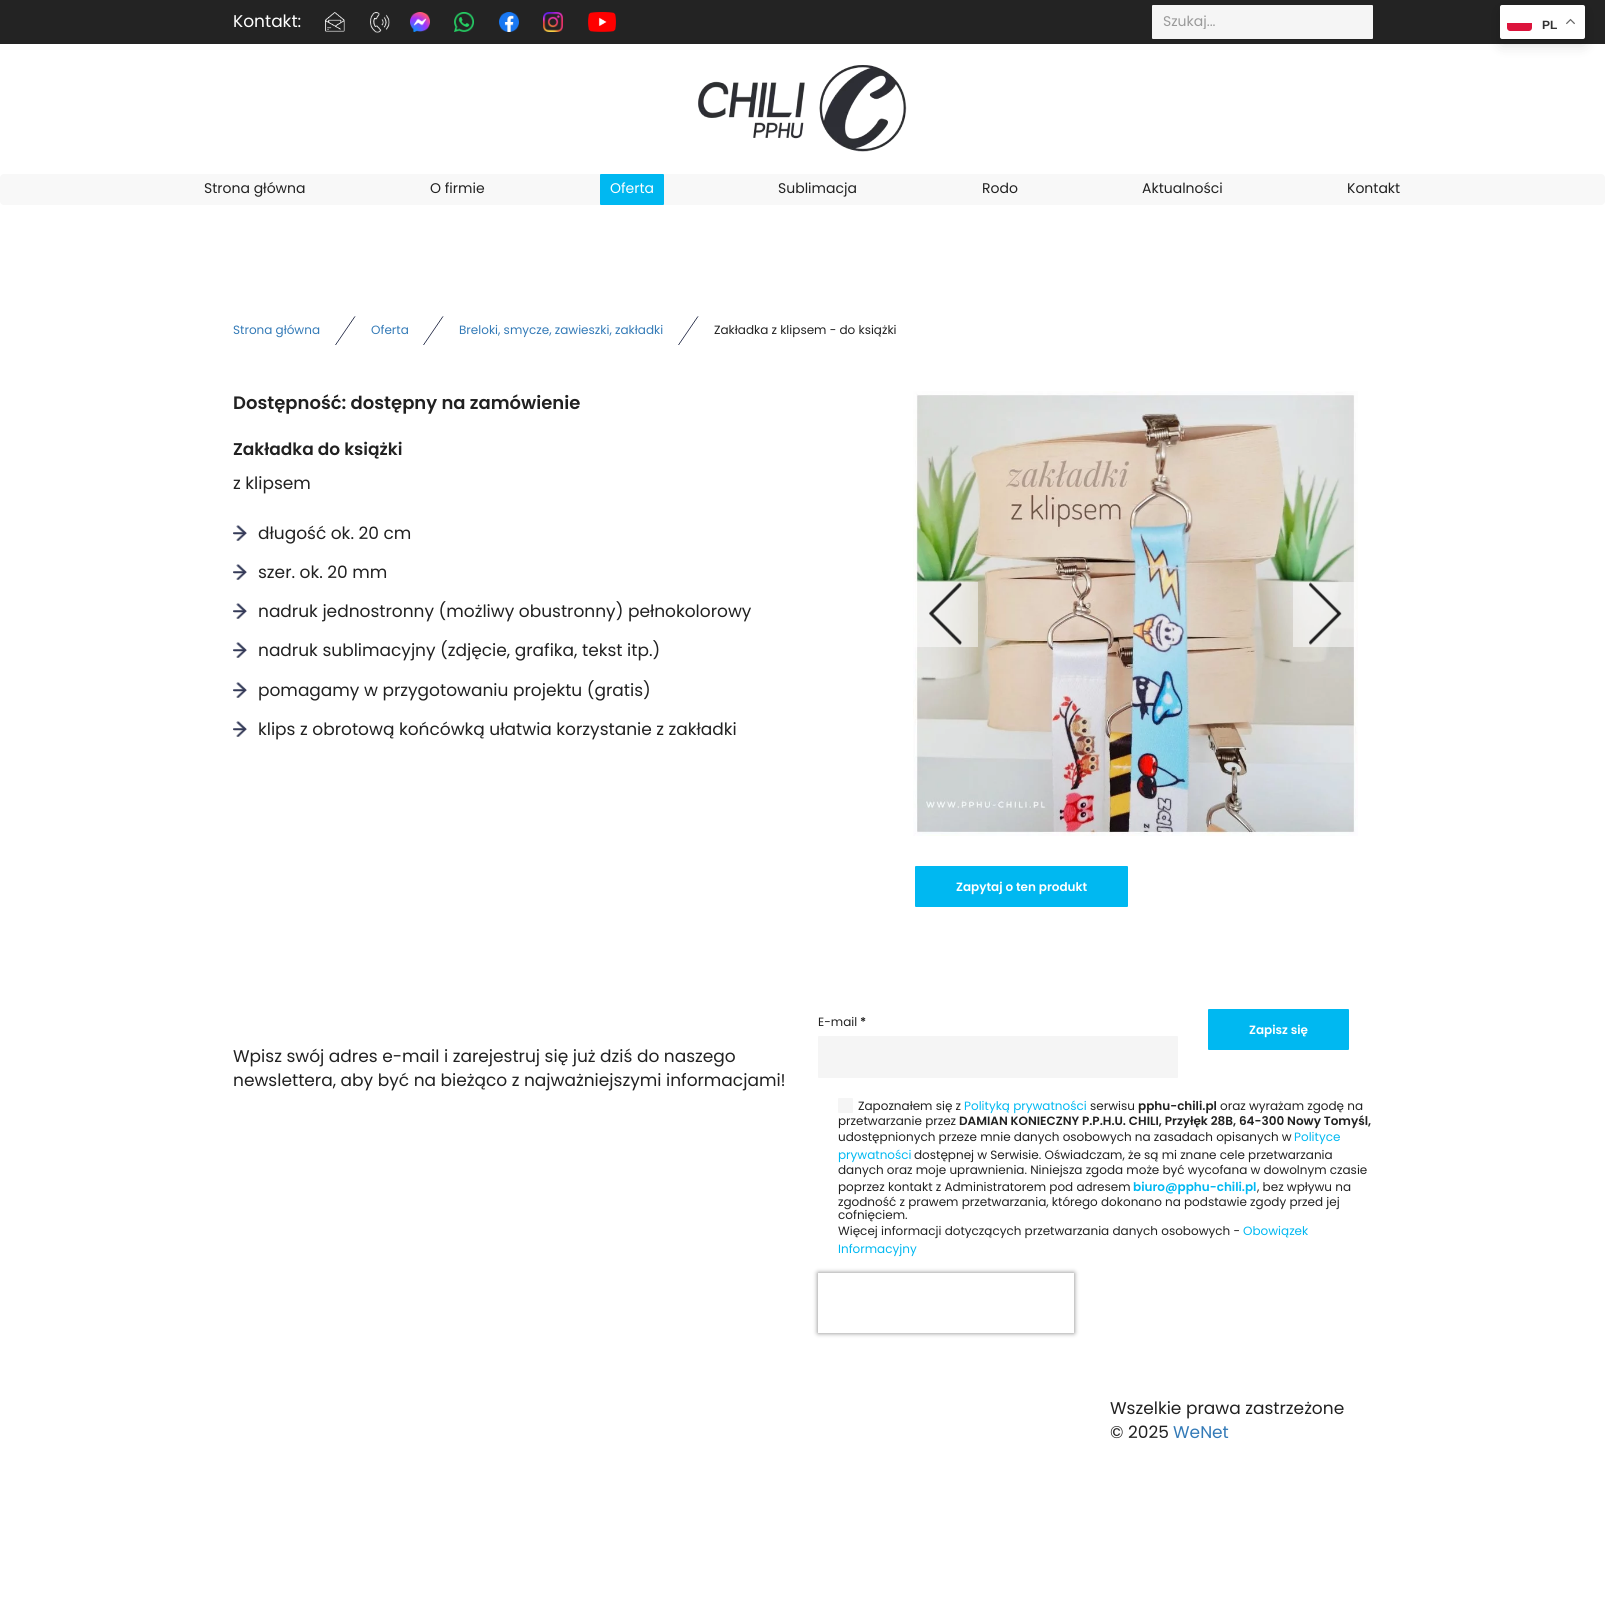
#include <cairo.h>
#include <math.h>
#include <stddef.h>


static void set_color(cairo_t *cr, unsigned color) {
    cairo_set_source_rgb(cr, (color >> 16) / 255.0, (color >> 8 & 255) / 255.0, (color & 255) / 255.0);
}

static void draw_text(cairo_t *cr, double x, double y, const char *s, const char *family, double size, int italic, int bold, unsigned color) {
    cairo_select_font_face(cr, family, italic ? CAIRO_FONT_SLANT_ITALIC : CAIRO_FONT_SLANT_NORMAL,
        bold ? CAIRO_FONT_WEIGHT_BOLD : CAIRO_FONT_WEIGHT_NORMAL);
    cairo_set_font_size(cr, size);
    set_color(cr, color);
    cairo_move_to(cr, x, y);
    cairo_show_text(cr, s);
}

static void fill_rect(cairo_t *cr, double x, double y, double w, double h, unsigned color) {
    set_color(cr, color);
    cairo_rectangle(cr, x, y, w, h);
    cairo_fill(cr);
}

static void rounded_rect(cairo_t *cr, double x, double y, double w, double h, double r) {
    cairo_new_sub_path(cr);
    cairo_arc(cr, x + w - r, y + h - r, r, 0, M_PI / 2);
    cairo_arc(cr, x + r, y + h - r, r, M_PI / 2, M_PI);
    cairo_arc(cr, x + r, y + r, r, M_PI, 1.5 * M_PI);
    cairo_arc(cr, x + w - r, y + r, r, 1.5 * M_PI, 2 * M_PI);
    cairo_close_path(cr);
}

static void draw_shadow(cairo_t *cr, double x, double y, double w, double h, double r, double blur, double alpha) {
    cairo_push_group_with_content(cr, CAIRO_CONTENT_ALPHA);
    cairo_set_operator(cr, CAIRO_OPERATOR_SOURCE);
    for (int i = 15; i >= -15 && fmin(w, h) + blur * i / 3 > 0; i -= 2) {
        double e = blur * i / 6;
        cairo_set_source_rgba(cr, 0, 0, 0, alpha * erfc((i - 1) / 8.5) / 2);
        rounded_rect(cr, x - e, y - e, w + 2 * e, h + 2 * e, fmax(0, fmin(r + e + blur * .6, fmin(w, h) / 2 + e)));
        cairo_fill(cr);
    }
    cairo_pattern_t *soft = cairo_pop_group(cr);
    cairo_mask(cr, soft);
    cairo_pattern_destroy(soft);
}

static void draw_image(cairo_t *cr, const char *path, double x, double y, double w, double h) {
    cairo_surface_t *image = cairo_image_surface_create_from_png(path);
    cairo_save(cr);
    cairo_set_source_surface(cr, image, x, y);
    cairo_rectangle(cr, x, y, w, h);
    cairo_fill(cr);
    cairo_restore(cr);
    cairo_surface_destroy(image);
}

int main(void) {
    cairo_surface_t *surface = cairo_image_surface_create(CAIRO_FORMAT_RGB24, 1605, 1614);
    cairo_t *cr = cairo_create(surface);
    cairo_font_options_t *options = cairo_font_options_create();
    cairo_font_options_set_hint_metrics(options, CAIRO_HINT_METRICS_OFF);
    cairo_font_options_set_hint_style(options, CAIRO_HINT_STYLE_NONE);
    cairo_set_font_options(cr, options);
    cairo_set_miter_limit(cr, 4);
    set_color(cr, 0xFFFFFF);
    cairo_paint(cr);
    fill_rect(cr, 0, 0, 1605, 44, 0x232323);
    draw_text(cr, 233, 27, "Kontakt:", "Poppins", 17, 0, 0, 0xFFFFFF);
    draw_image(cr, "assets/img1.png", 325, 12, 20, 20);
    draw_image(cr, "assets/img2.png", 370, 12, 20, 21);
    draw_image(cr, "assets/img3.png", 410, 12, 20, 20);
    draw_image(cr, "assets/img4.png", 454, 12, 20, 20);
    draw_image(cr, "assets/img5.png", 499, 12, 20, 20);
    draw_image(cr, "assets/img6.png", 543, 12, 20, 20);
    draw_image(cr, "assets/img7.png", 588, 12, 28, 20);
    set_color(cr, 0xF5F5F5);
    rounded_rect(cr, 1152.5, 5.5, 220, 33, 0.5);
    cairo_fill_preserve(cr);
    cairo_set_line_width(cr, 1);
    cairo_stroke(cr);
    cairo_save(cr);
    cairo_rectangle(cr, 1163, 15, 199, 14);
    cairo_clip(cr);
    draw_text(cr, 1163, 26, "Szukaj...", "Poppins", 14, 0, 0, 0x999999);
    cairo_restore(cr);
    draw_image(cr, "assets/img8.png", 698, 65, 209, 87);
    set_color(cr, 0xF8F8F8);
    rounded_rect(cr, 0, 174, 1605, 31, 4);
    cairo_fill(cr);
    draw_text(cr, 204, 193, "Strona główna", "Poppins", 14, 0, 0, 0x212121);
    draw_text(cr, 430, 193, "O firmie", "Poppins", 14, 0, 0, 0x212121);
    set_color(cr, 0x00B8F1);
    rounded_rect(cr, 600, 174, 64, 31, 1);
    cairo_fill(cr);
    draw_text(cr, 610, 193, "Oferta", "Poppins", 14, 0, 0, 0xFFFFFF);
    draw_text(cr, 778, 193, "Sublimacja", "Poppins", 14, 0, 0, 0x212121);
    draw_text(cr, 982, 193, "Rodo", "Poppins", 14, 0, 0, 0x212121);
    draw_text(cr, 1142, 193, "Aktualności", "Poppins", 14, 0, 0, 0x212121);
    draw_text(cr, 1347, 193, "Kontakt", "Poppins", 14, 0, 0, 0x212121);
    set_color(cr, 0x000000);
    draw_shadow(cr, 1500, 10, 85, 34, 2, 7.5, 0.15);
    set_color(cr, 0xFFFFFF);
    rounded_rect(cr, 1500, 5, 85, 34, 2);
    cairo_fill(cr);
    set_color(cr, 0xDC143C);
    cairo_new_path(cr);
    cairo_move_to(cr, 1507, 23);
    cairo_line_to(cr, 1532, 23);
    cairo_line_to(cr, 1532, 28);
    cairo_curve_to(cr, 1532, 29.5, 1530.5, 31, 1529, 31);
    cairo_line_to(cr, 1510, 31);
    cairo_curve_to(cr, 1508.5, 31, 1507, 29.5, 1507, 28);
    cairo_close_path(cr);
    cairo_fill(cr);
    draw_text(cr, 1542, 29, "PL", "Liberation Sans", 12, 0, 1, 0x333333);
    draw_image(cr, "assets/img9.png", 1566, 18, 9, 7);
    draw_text(cr, 233, 334, "Strona główna", "Poppins", 12, 0, 0, 0x337AB7);
    draw_image(cr, "assets/img10.png", 335, 316, 21, 29);
    draw_text(cr, 371, 334, "Oferta", "Poppins", 12, 0, 0, 0x337AB7);
    draw_image(cr, "assets/img10.png", 423, 316, 21, 29);
    draw_text(cr, 459, 334, "Breloki, smycze, zawieszki, zakładki", "Poppins", 12, 0, 0, 0x337AB7);
    draw_image(cr, "assets/img10.png", 678, 316, 21, 29);
    draw_text(cr, 714, 334, "Zakładka z klipsem - do książki", "Poppins", 12, 0, 0, 0x212121);
    draw_text(cr, 233, 409, "Dostępność: dostępny na zamówienie", "Poppins SemiBold", 18, 0, 0, 0x212121);
    draw_image(cr, "assets/img11.png", 913, 391, 445, 445);
    cairo_set_source_rgba(cr, 1, 1, 1, 0.5);
    cairo_rectangle(cr, 914, 582, 64, 65);
    cairo_fill(cr);
    draw_image(cr, "assets/img12.png", 929, 582, 33, 63);
    cairo_rectangle(cr, 1293, 582, 63, 65);
    cairo_fill(cr);
    draw_image(cr, "assets/img13.png", 1309, 582, 33, 63);
    draw_text(cr, 233, 455, "Zakładka do książki", "Poppins SemiBold", 17, 0, 0, 0x212121);
    draw_text(cr, 233, 489, "z klipsem", "Poppins", 17, 0, 0, 0x212121);
    draw_image(cr, "assets/img14.png", 233, 525, 14, 16);
    draw_text(cr, 258, 539, "długość ok. 20 cm", "Poppins", 17, 0, 0, 0x212121);
    draw_image(cr, "assets/img14.png", 233, 564, 14, 16);
    draw_text(cr, 258, 578, "szer. ok. 20 mm", "Poppins", 17, 0, 0, 0x212121);
    draw_image(cr, "assets/img14.png", 233, 603, 14, 16);
    draw_text(cr, 258, 617, "nadruk jednostronny (możliwy obustronny) pełnokolorowy", "Poppins", 17, 0, 0, 0x212121);
    draw_image(cr, "assets/img14.png", 233, 642, 14, 16);
    draw_text(cr, 258, 656, "nadruk sublimacyjny (zdjęcie, grafika, tekst itp.)", "Poppins", 17, 0, 0, 0x212121);
    draw_image(cr, "assets/img14.png", 233, 682, 14, 16);
    draw_text(cr, 258, 696, "pomagamy w przygotowaniu projektu (gratis)", "Poppins", 17, 0, 0, 0x212121);
    draw_image(cr, "assets/img14.png", 233, 721, 14, 16);
    draw_text(cr, 258, 735, "klips z obrotową końcówką ułatwia korzystanie z zakładki", "Poppins", 17, 0, 0, 0x212121);
    set_color(cr, 0x00B8F1);
    rounded_rect(cr, 915.5, 866.5, 212, 40, 0.5);
    cairo_fill_preserve(cr);
    cairo_stroke(cr);
    draw_text(cr, 956, 891, "Zapytaj o ten produkt", "Poppins SemiBold", 12, 0, 0, 0xFFFFFF);
    draw_text(cr, 233, 1062, "Wpisz swój adres e-mail i zarejestruj się już dziś do naszego", "Poppins", 17, 0, 0, 0x212121);
    draw_text(cr, 233, 1086, "newslettera, aby być na bieżąco z najważniejszymi informacjami!", "Poppins", 17, 0, 0, 0x212121);
    draw_text(cr, 818, 1026, "E-mail", "Poppins", 12, 0, 0, 0x212121);
    draw_text(cr, 860, 1026, "*", "Poppins SemiBold", 12, 0, 0, 0x212121);
    set_color(cr, 0xF5F5F5);
    rounded_rect(cr, 818, 1036, 360, 42, 1);
    cairo_fill(cr);
    set_color(cr, 0x00B8F1);
    rounded_rect(cr, 1208.5, 1009.5, 140, 40, 0.5);
    cairo_fill_preserve(cr);
    cairo_stroke(cr);
    draw_text(cr, 1249, 1034, "Zapisz się", "Poppins SemiBold", 12, 0, 0, 0xFFFFFF);
    set_color(cr, 0xF5F5F5);
    rounded_rect(cr, 838, 1098, 15, 15, 1);
    cairo_fill(cr);
    draw_text(cr, 858, 1110, "Zapoznałem się z", "Poppins", 12, 0, 0, 0x212121);
    draw_text(cr, 964, 1110, "Polityką prywatności", "Poppins", 12, 0, 0, 0x00B8F1);
    draw_text(cr, 1090, 1110, "serwisu", "Poppins", 12, 0, 0, 0x212121);
    draw_text(cr, 1138, 1110, "pphu-chili.pl", "Poppins SemiBold", 12, 0, 0, 0x212121);
    draw_text(cr, 1220, 1110, "oraz wyrażam zgodę na", "Poppins", 12, 0, 0, 0x212121);
    draw_text(cr, 838, 1125, "przetwarzanie przez", "Poppins", 12, 0, 0, 0x212121);
    draw_text(cr, 959, 1125, "DAMIAN KONIECZNY P.P.H.U. CHILI, Przyłęk 28B, 64-300 Nowy Tomyśl,", "Poppins SemiBold", 12, 0, 0, 0x212121);
    draw_text(cr, 838, 1141, "udostępnionych przeze mnie danych osobowych na zasadach opisanych w", "Poppins", 12, 0, 0, 0x212121);
    draw_text(cr, 1294, 1141, "Polityce", "Poppins", 12, 0, 0, 0x00B8F1);
    draw_text(cr, 838, 1159, "prywatności", "Poppins", 12, 0, 0, 0x00B8F1);
    draw_text(cr, 914, 1159, "dostępnej w Serwisie. Oświadczam, że są mi znane cele przetwarzania", "Poppins", 12, 0, 0, 0x212121);
    draw_text(cr, 838, 1174, "danych oraz moje uprawnienia. Niniejsza zgoda może być wycofana w dowolnym czasie", "Poppins", 12, 0, 0, 0x212121);
    draw_text(cr, 838, 1191, "poprzez kontakt z Administratorem pod adresem", "Poppins", 12, 0, 0, 0x212121);
    draw_text(cr, 1133, 1191, "biuro@pphu-chili.pl", "Poppins SemiBold", 12, 0, 0, 0x00B8F1);
    draw_text(cr, 1257, 1191, ", bez wpływu na", "Poppins", 12, 0, 0, 0x212121);
    draw_text(cr, 838, 1206, "zgodność z prawem przetwarzania, którego dokonano na podstawie zgody przed jej", "Poppins", 12, 0, 0, 0x212121);
    draw_text(cr, 838, 1219, "cofnięciem.", "Poppins", 12, 0, 0, 0x212121);
    draw_text(cr, 838, 1235, "Więcej informacji dotyczących przetwarzania danych osobowych -", "Poppins", 12, 0, 0, 0x212121);
    draw_text(cr, 1243, 1235, "Obowiązek", "Poppins", 12, 0, 0, 0x00B8F1);
    draw_text(cr, 838, 1253, "Informacyjny", "Poppins", 12, 0, 0, 0x00B8F1);
    cairo_save(cr);
    cairo_set_fill_rule(cr, CAIRO_FILL_RULE_EVEN_ODD);
    cairo_new_path(cr);
    cairo_move_to(cr, 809, 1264);
    cairo_line_to(cr, 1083, 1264);
    cairo_line_to(cr, 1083, 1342);
    cairo_line_to(cr, 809, 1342);
    cairo_close_path(cr);
    cairo_move_to(cr, 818, 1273);
    cairo_line_to(cr, 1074, 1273);
    cairo_line_to(cr, 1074, 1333);
    cairo_line_to(cr, 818, 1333);
    cairo_close_path(cr);
    cairo_clip(cr);
    set_color(cr, 0x808080);
    draw_shadow(cr, 818, 1273, 256, 60, 0, 2.5, 1);
    cairo_restore(cr);
    draw_text(cr, 1110, 1414, "Wszelkie prawa zastrzeżone", "Poppins", 17, 0, 0, 0x212121);
    draw_text(cr, 1110, 1438, "© 2025", "Poppins", 17, 0, 0, 0x212121);
    draw_text(cr, 1173, 1438, "WeNet", "Poppins", 17, 0, 0, 0x337AB7);
    cairo_surface_write_to_png(surface, "output.png");
    cairo_font_options_destroy(options);
    cairo_destroy(cr);
    cairo_surface_destroy(surface);
    return 0;
}
